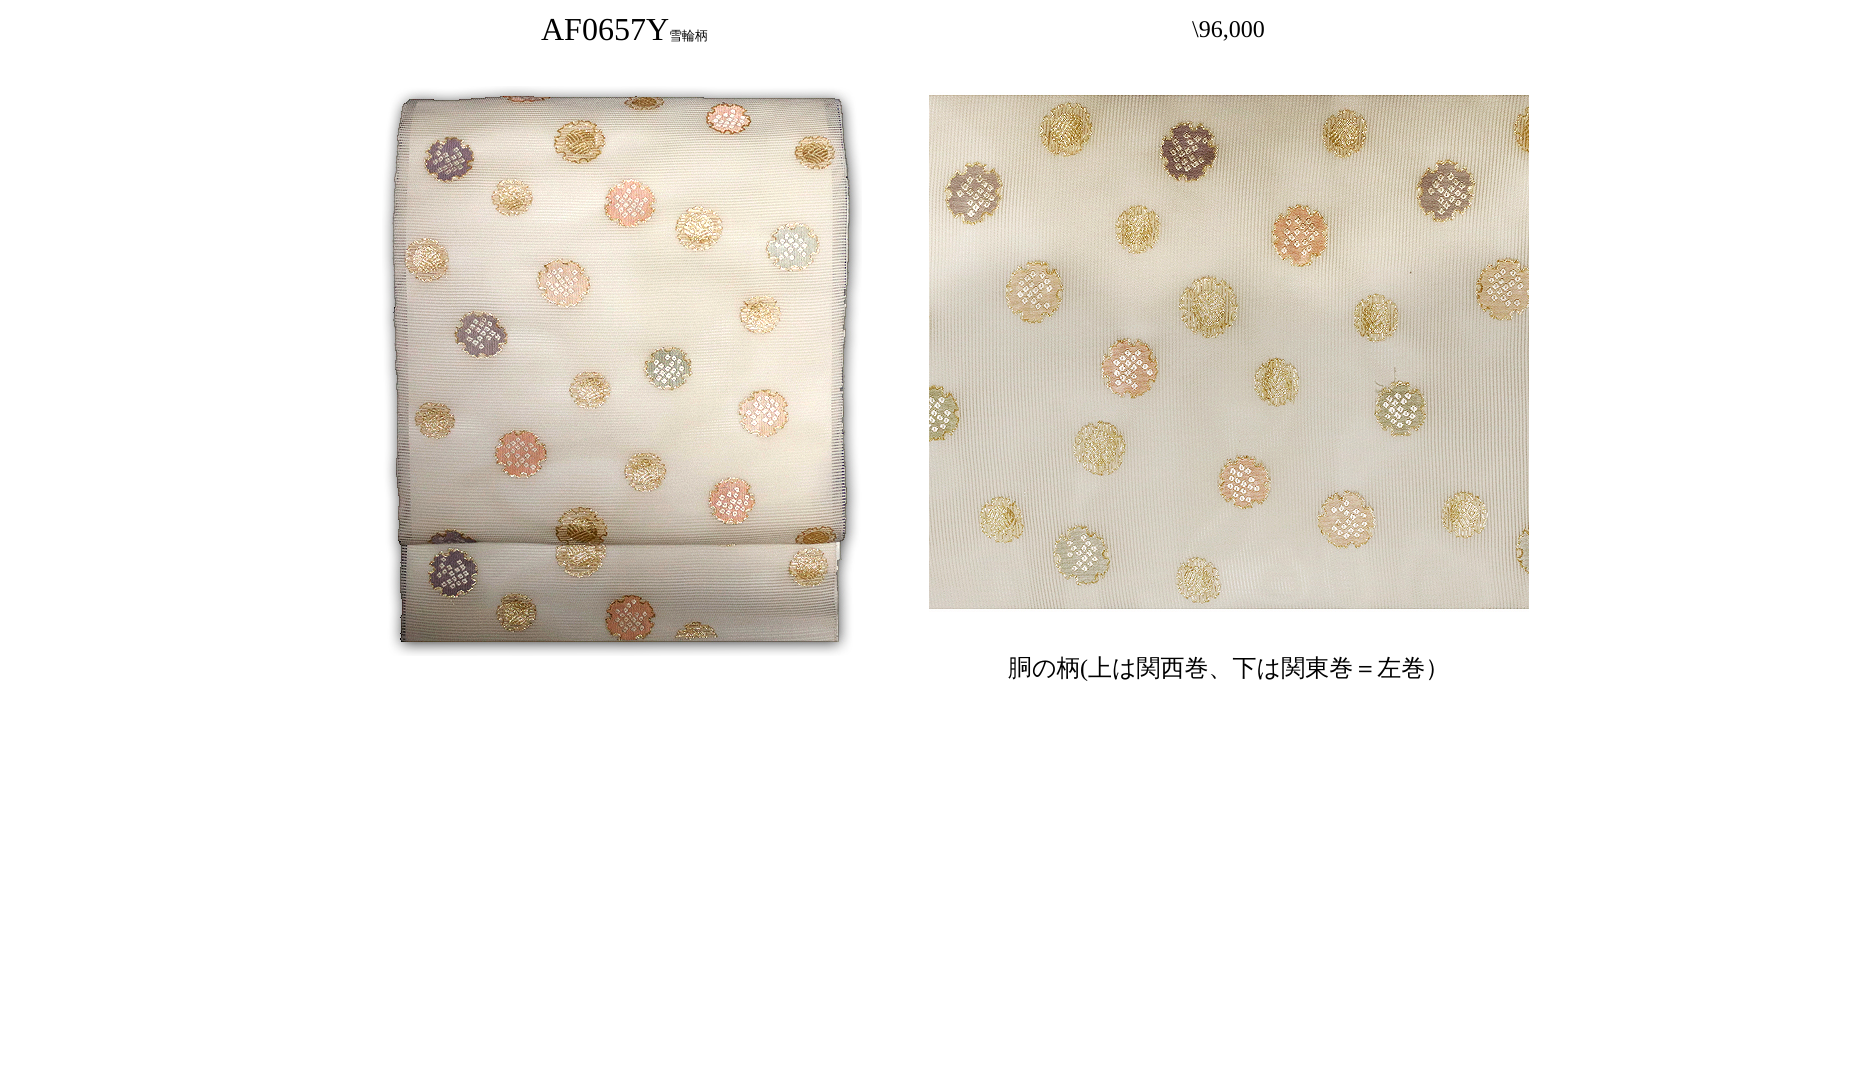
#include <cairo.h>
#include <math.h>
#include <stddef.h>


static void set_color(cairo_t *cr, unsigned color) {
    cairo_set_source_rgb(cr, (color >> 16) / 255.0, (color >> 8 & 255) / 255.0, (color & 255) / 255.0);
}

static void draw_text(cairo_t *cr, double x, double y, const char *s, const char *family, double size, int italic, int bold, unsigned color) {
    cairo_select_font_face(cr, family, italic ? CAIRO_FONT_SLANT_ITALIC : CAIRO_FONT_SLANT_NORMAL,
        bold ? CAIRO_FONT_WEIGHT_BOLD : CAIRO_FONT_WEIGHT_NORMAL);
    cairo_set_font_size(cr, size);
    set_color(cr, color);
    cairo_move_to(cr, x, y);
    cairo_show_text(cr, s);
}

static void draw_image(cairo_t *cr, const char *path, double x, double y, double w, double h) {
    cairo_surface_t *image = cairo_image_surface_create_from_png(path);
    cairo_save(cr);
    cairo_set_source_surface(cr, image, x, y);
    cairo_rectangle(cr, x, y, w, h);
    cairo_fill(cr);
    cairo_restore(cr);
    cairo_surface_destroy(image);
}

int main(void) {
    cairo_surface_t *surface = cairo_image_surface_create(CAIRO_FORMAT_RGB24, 1853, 1089);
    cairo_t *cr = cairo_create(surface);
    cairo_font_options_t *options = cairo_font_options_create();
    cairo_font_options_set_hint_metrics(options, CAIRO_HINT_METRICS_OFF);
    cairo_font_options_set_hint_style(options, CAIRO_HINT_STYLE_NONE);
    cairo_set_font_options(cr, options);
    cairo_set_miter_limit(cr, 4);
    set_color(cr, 0xFFFFFF);
    cairo_paint(cr);
    draw_text(cr, 541, 40, "AF0657Y", "Liberation Serif", 32, 0, 0, 0x000000);
    draw_text(cr, 669, 40, "雪輪柄", "WenQuanYi Zen Hei Medium", 13, 0, 0, 0x000000);
    draw_text(cr, 1192, 37, "\\96,000", "Liberation Serif", 24, 0, 0, 0x000000);
    draw_image(cr, "assets/img1.png", 382, 86, 480, 570);
    draw_image(cr, "assets/img2.png", 929, 92, 600, 520);
    draw_text(cr, 1008, 676, "胴の柄", "WenQuanYi Zen Hei Medium", 24, 0, 0, 0x000000);
    draw_text(cr, 1080, 676, "(", "Liberation Serif", 24, 0, 0, 0x000000);
    draw_text(cr, 1088, 676, "上は関西巻、下は関東巻＝左巻）", "WenQuanYi Zen Hei Medium", 24, 0, 0, 0x000000);
    cairo_surface_write_to_png(surface, "output.png");
    cairo_font_options_destroy(options);
    cairo_destroy(cr);
    cairo_surface_destroy(surface);
    return 0;
}
